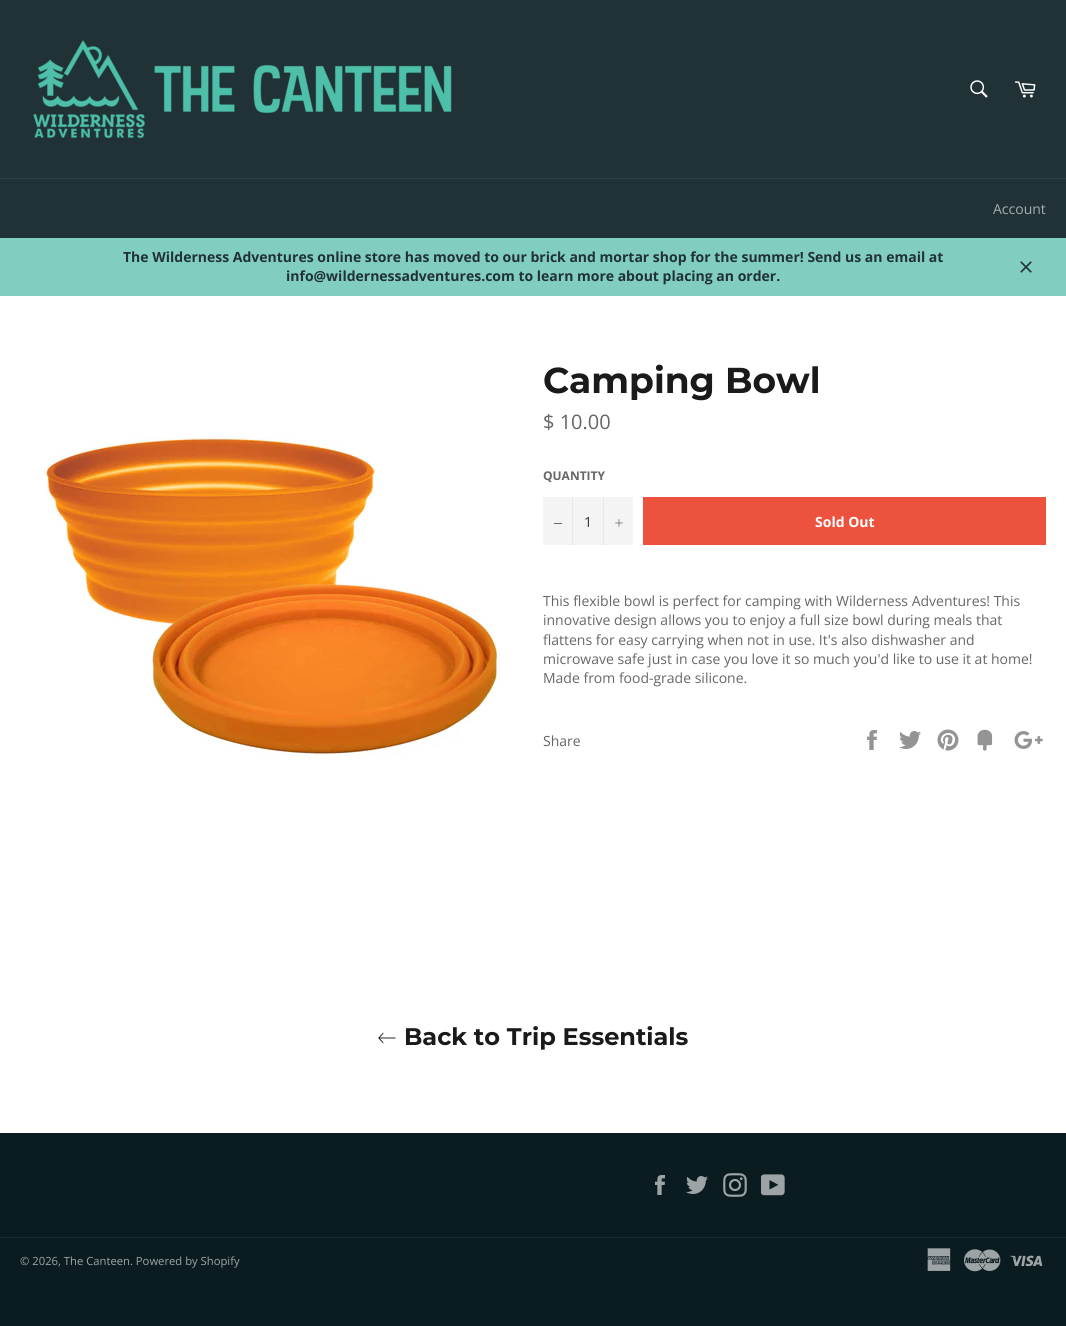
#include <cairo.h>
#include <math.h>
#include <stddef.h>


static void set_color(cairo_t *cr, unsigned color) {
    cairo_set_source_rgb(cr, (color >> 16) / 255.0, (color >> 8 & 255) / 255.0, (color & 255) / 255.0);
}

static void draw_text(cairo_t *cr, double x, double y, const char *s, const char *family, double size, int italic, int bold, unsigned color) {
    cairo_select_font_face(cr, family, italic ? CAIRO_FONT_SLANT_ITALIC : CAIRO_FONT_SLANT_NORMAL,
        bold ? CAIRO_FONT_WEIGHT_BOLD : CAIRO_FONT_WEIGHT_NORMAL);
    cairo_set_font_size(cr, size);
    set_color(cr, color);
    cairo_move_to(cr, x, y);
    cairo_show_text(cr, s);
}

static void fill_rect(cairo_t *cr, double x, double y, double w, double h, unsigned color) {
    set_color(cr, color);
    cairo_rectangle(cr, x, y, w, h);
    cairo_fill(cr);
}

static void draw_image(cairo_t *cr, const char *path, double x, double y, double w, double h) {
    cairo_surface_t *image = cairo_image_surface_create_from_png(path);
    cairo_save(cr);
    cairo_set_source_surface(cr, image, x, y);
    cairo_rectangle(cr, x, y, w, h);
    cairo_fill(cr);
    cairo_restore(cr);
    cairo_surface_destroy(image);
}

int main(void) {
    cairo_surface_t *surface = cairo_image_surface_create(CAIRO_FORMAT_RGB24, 1066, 1326);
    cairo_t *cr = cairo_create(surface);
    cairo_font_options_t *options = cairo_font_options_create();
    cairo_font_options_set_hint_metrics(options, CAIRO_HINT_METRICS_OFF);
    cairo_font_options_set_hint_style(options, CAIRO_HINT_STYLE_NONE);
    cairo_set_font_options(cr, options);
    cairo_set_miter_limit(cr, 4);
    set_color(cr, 0x0B1C21);
    cairo_paint(cr);
    fill_rect(cr, 0, 296, 1066, 837, 0xFFFFFF);
    fill_rect(cr, 0, 0, 1066, 178, 0x213236);
    draw_image(cr, "assets/img1.png", 33, 40, 419, 99);
    draw_image(cr, "assets/img2.png", 970, 80, 18, 18);
    draw_image(cr, "assets/img3.png", 1014, 81, 22, 17);
    fill_rect(cr, 0, 179, 1066, 59, 0x213236);
    fill_rect(cr, 0, 178, 1066, 1, 0x2B4146);
    draw_text(cr, 993, 214, "Account", "Open Sans", 14, 0, 0, 0xA6ADAF);
    fill_rect(cr, 0, 238, 1066, 58, 0x81CEC1);
    draw_text(cr, 123, 262, "The Wilderness Adventures online store has moved to our brick and mortar shop for the summer! Send us an email at", "Open Sans", 14, 0, 1, 0x213236);
    draw_text(cr, 286, 281, "info@wildernessadventures.com to learn more about placing an order.", "Open Sans", 14, 0, 1, 0x213236);
    draw_image(cr, "assets/img4.png", 1020, 261, 12, 12);
    draw_image(cr, "assets/img5.png", 45, 436, 455, 320);
    draw_text(cr, 543, 393, "Camping Bowl", "Montserrat", 36, 0, 1, 0x1A1A1A);
    draw_text(cr, 543, 429, "$ 10.00", "Open Sans", 20, 0, 0, 0x666666);
    draw_text(cr, 543, 480, "QUANTITY", "Open Sans", 12, 0, 1, 0x666666);
    fill_rect(cr, 543, 497, 90, 48, 0xF4F4F4);
    fill_rect(cr, 572, 497, 1, 48, 0xE7E7E7);
    fill_rect(cr, 554, 523, 8, 1, 0x666666);
    draw_text(cr, 584, 527, "1", "Open Sans", 14, 0, 0, 0x333333);
    fill_rect(cr, 603, 497, 1, 48, 0xE7E7E7);
    draw_image(cr, "assets/img6.png", 615, 519, 8, 8);
    fill_rect(cr, 643, 497, 403, 48, 0xEC523E);
    draw_text(cr, 815, 527, "Sold Out", "Open Sans", 14, 0, 1, 0xFFFFFF);
    draw_text(cr, 543, 606, "This flexible bowl is perfect for camping with Wilderness Adventures! This", "Open Sans", 14, 0, 0, 0x666666);
    draw_text(cr, 543, 625, "innovative design allows you to enjoy a full size bowl during meals that", "Open Sans", 14, 0, 0, 0x666666);
    draw_text(cr, 543, 645, "flattens for easy carrying when not in use. It's also dishwasher and", "Open Sans", 14, 0, 0, 0x666666);
    draw_text(cr, 543, 664, "microwave safe just in case you love it so much you'd like to use it at home!", "Open Sans", 14, 0, 0, 0x666666);
    draw_text(cr, 543, 683, "Made from food-grade silicone.", "Open Sans", 14, 0, 0, 0x666666);
    draw_text(cr, 543, 746, "Share", "Open Sans", 14, 0, 0, 0x666666);
    draw_image(cr, "assets/img7.png", 867, 730, 10, 20);
    draw_image(cr, "assets/img8.png", 899, 731, 22, 18);
    draw_image(cr, "assets/img9.png", 937, 729, 22, 22);
    draw_image(cr, "assets/img10.png", 977, 729, 16, 22);
    draw_image(cr, "assets/img11.png", 1014, 731, 29, 18);
    draw_image(cr, "assets/img12.png", 378, 1032, 18, 12);
    draw_text(cr, 404, 1045, "Back to Trip Essentials", "Montserrat", 24, 0, 1, 0x1A1A1A);
    draw_image(cr, "assets/img13.png", 655, 1175, 10, 20);
    draw_image(cr, "assets/img14.png", 686, 1176, 22, 18);
    draw_image(cr, "assets/img15.png", 723, 1173, 24, 24);
    draw_image(cr, "assets/img16.png", 761, 1174, 24, 22);
    fill_rect(cr, 0, 1237, 1066, 1, 0x112C34);
    draw_text(cr, 20, 1265, "© 2026, The Canteen. Powered by Shopify", "Open Sans", 11.25, 0, 0, 0x9DA4A6);
    draw_image(cr, "assets/img17.png", 927, 1248, 24, 23);
    draw_image(cr, "assets/img18.png", 964, 1249, 37, 23);
    draw_image(cr, "assets/img19.png", 1010, 1255, 33, 12);
    cairo_surface_write_to_png(surface, "output.png");
    cairo_font_options_destroy(options);
    cairo_destroy(cr);
    cairo_surface_destroy(surface);
    return 0;
}
